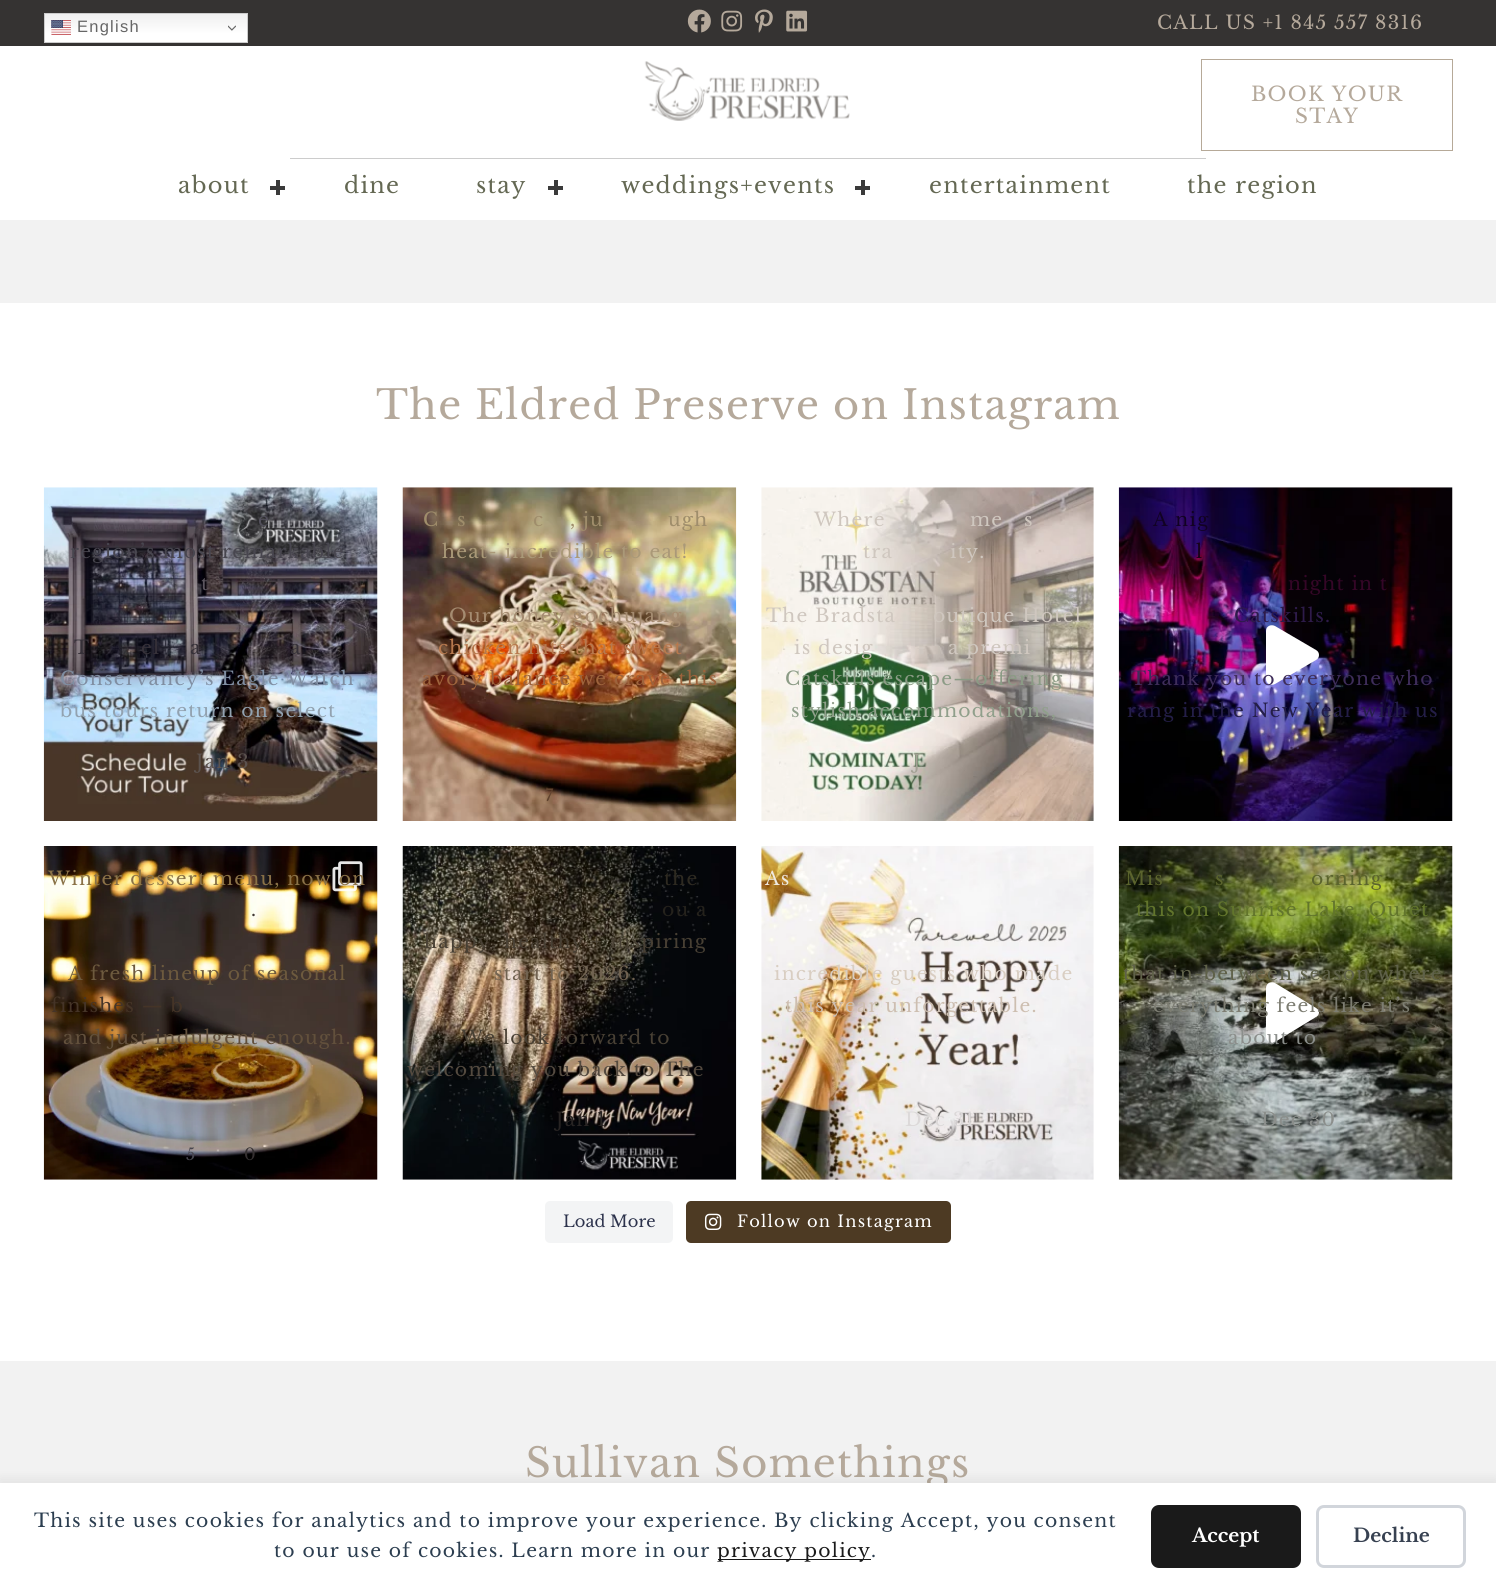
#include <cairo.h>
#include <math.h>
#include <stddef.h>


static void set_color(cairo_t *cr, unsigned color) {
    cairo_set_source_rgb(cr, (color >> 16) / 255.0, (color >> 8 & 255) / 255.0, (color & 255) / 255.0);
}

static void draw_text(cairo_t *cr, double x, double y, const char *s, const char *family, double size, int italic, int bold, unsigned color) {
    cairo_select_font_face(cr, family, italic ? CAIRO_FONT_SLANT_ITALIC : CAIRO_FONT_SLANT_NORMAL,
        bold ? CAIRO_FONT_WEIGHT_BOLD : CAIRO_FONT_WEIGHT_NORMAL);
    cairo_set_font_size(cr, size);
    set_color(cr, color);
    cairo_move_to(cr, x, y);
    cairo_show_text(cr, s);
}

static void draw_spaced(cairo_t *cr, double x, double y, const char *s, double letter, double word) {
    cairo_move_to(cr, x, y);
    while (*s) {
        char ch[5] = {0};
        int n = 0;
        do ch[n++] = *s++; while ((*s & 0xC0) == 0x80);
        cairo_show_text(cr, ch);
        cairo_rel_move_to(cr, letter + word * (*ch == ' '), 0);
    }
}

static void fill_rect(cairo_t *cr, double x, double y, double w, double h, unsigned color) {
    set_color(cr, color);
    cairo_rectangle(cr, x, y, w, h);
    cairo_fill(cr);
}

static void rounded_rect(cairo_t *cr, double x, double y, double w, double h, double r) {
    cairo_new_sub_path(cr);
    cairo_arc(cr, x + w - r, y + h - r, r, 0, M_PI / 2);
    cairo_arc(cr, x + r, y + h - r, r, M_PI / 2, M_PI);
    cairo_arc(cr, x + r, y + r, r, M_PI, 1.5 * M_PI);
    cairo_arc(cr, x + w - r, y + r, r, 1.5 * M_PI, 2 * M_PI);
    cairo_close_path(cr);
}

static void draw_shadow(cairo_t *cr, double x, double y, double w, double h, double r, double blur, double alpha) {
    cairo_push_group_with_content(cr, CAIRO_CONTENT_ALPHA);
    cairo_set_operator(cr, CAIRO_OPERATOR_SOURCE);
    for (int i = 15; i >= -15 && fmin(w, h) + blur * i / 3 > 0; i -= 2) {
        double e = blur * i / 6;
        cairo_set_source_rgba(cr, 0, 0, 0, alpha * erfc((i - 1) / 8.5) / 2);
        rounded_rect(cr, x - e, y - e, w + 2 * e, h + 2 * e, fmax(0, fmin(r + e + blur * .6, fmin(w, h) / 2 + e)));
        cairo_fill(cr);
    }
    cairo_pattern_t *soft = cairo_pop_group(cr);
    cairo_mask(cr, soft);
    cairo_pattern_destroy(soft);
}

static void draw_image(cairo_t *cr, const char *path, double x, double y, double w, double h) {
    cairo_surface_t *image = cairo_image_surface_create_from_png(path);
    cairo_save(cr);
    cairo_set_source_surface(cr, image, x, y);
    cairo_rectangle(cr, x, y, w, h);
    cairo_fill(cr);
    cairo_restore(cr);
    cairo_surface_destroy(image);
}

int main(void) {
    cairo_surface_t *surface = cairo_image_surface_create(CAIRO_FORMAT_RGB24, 1496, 1590);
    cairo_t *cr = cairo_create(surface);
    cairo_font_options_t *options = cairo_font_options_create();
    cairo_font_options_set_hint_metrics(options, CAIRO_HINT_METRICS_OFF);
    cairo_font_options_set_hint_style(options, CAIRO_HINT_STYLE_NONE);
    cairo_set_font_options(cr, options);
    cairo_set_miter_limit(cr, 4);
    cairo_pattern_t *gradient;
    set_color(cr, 0xFFFFFF);
    cairo_paint(cr);
    fill_rect(cr, 0, 0, 1496, 46, 0x353332);
    gradient = cairo_pattern_create_linear(146, 13, 146, 43);
    cairo_pattern_add_color_stop_rgba(gradient, 0, 0.937, 0.937, 0.937, 1);
    cairo_pattern_add_color_stop_rgba(gradient, 0.7, 1, 1, 1, 1);
    cairo_set_source(cr, gradient);
    cairo_pattern_destroy(gradient);
    cairo_rectangle(cr, 45, 14, 202, 28);
    cairo_fill(cr);
    cairo_rectangle(cr, 44.5, 13.5, 203, 29);
    set_color(cr, 0xCCCCCC);
    cairo_set_line_width(cr, 1);
    cairo_stroke(cr);
    draw_image(cr, "assets/img1.png", 51, 20, 20, 15);
    cairo_select_font_face(cr, "Liberation Sans", CAIRO_FONT_SLANT_NORMAL, CAIRO_FONT_WEIGHT_NORMAL);
    cairo_set_font_size(cr, 16.5);
    set_color(cr, 0x666666);
    draw_spaced(cr, 77, 32, "English", 1.25, 0);
    draw_image(cr, "assets/img2.png", 228, 25, 8, 6);
    draw_image(cr, "assets/img3.png", 687, 9, 24, 24);
    draw_image(cr, "assets/img4.png", 721, 10, 22, 22);
    draw_image(cr, "assets/img5.png", 755, 9, 18, 24);
    draw_image(cr, "assets/img6.png", 786, 10, 22, 22);
    cairo_select_font_face(cr, "Libre Baskerville", CAIRO_FONT_SLANT_NORMAL, CAIRO_FONT_WEIGHT_NORMAL);
    cairo_set_font_size(cr, 18.75);
    set_color(cr, 0xB5A99B);
    draw_spaced(cr, 1157, 29, "CALL US +1 845 557 8316", 1.25, 0);
    draw_image(cr, "assets/img7.png", 644, 61, 206, 60);
    cairo_rectangle(cr, 1201.5, 59.5, 251, 91);
    set_color(cr, 0xB6A998);
    cairo_stroke(cr);
    cairo_set_font_size(cr, 20);
    set_color(cr, 0xB5A99B);
    draw_spaced(cr, 1251, 101, "BOOK YOUR", 1.25, 0);
    draw_spaced(cr, 1295, 123, "STAY", 1.25, 0);
    fill_rect(cr, 290, 158, 916, 1, 0xCCCCCC);
    cairo_set_font_size(cr, 22.5);
    set_color(cr, 0x646853);
    draw_spaced(cr, 178, 193, "about", 1.25, 0);
    fill_rect(cr, 270, 186, 15, 4, 0x3A3A3A);
    fill_rect(cr, 276, 180, 4, 15, 0x3A3A3A);
    set_color(cr, 0x646853);
    draw_spaced(cr, 344, 193, "dine", 1.25, 0);
    draw_spaced(cr, 476, 193, "stay", 1.25, 0);
    fill_rect(cr, 548, 186, 15, 4, 0x3A3A3A);
    fill_rect(cr, 554, 180, 4, 15, 0x3A3A3A);
    set_color(cr, 0x646853);
    draw_spaced(cr, 621, 193, "weddings+events", 1.25, 0);
    fill_rect(cr, 855, 186, 15, 4, 0x3A3A3A);
    fill_rect(cr, 861, 180, 4, 15, 0x3A3A3A);
    set_color(cr, 0x646853);
    draw_spaced(cr, 929, 193, "entertainment", 1.25, 0);
    draw_spaced(cr, 1187, 193, "the region", 1.25, 0);
    fill_rect(cr, 0, 220, 1496, 83, 0xF2F2F2);
    cairo_set_font_size(cr, 40);
    set_color(cr, 0xB5A99B);
    draw_spaced(cr, 376, 419, "The Eldred Preserve on Instagram", 1.25, 0);
    draw_image(cr, "assets/img8.png", 43, 487, 335, 334);
    cairo_set_font_size(cr, 18.75);
    set_color(cr, 0x52505B);
    draw_spaced(cr, 258, 526, "e", 1.25, 0);
    set_color(cr, 0x48464F);
    draw_spaced(cr, 70, 558, "region’s most remarkable", 1.25, 0);
    set_color(cr, 0x5C565F);
    draw_spaced(cr, 201, 590, "t", 1.25, 0);
    set_color(cr, 0x363139);
    draw_spaced(cr, 74, 654, "T", 1.25, 0);
    draw_spaced(cr, 141, 654, "el", 1.25, 0);
    draw_spaced(cr, 190, 654, "a", 1.25, 0);
    draw_spaced(cr, 290, 654, "a", 1.25, 0);
    set_color(cr, 0x808EA2);
    draw_spaced(cr, 60, 685, "Conservancy’s Eagle Watch", 1.25, 0);
    set_color(cr, 0x92A2B0);
    draw_spaced(cr, 60, 717, "bus tours return on select", 1.25, 0);
    set_color(cr, 0x5B524E);
    draw_spaced(cr, 196, 768, "Jan 3", 1.25, 0);
    draw_image(cr, "assets/img9.png", 402, 487, 335, 334);
    set_color(cr, 0x9F8D6B);
    draw_spaced(cr, 423, 526, "C", 1.25, 0);
    draw_spaced(cr, 457, 526, "s", 1.25, 0);
    draw_spaced(cr, 533, 526, "c", 1.25, 0);
    draw_spaced(cr, 570, 526, ", ju", 1.25, 0);
    draw_spaced(cr, 668, 526, "ugh", 1.25, 0);
    set_color(cr, 0xAA9978);
    draw_spaced(cr, 442, 558, "heat- incredible to eat!", 1.25, 0);
    set_color(cr, 0xA58C71);
    draw_spaced(cr, 449, 622, "Our honey gochujang", 1.25, 0);
    set_color(cr, 0xB7794E);
    draw_spaced(cr, 438, 654, "chicken hits that sweet", 1.25, 0);
    set_color(cr, 0x9D633C);
    draw_spaced(cr, 422, 685, "avory balance we crave this", 1.25, 0);
    cairo_set_font_size(cr, 16.25);
    set_color(cr, 0x60432F);
    draw_spaced(cr, 545, 801, "7", 1.25, 0);
    draw_image(cr, "assets/img10.png", 761, 487, 333, 334);
    cairo_set_font_size(cr, 18.75);
    set_color(cr, 0xCFC7BF);
    draw_spaced(cr, 814, 526, "Where", 1.25, 0);
    draw_spaced(cr, 970, 526, "me", 1.25, 0);
    draw_spaced(cr, 1024, 526, "s", 1.25, 0);
    draw_spaced(cr, 863, 558, "tra", 1.25, 0);
    draw_spaced(cr, 950, 558, "ity.", 1.25, 0);
    draw_spaced(cr, 766, 622, "The Bradsta", 1.25, 0);
    draw_spaced(cr, 933, 622, "outique Hotel", 1.25, 0);
    draw_spaced(cr, 794, 654, "is desig", 1.25, 0);
    draw_spaced(cr, 948, 654, "a premi", 1.25, 0);
    set_color(cr, 0x8B9B85);
    draw_spaced(cr, 785, 685, "Catskills escape—offering", 1.25, 0);
    set_color(cr, 0x909F8B);
    draw_spaced(cr, 791, 717, "stylish accommodations,", 1.25, 0);
    set_color(cr, 0xA3A194);
    draw_spaced(cr, 913, 768, "J", 1.25, 0);
    draw_image(cr, "assets/img11.png", 1118, 487, 335, 334);
    set_color(cr, 0x110223);
    draw_spaced(cr, 1153, 526, "A nig", 1.25, 0);
    set_color(cr, 0x160218);
    draw_spaced(cr, 1196, 558, "l", 1.25, 0);
    set_color(cr, 0x350627);
    draw_spaced(cr, 1288, 590, "night in t", 1.25, 0);
    set_color(cr, 0x2E1B4A);
    draw_spaced(cr, 1234, 622, "Catskills.", 1.25, 0);
    set_color(cr, 0xFFFFFF);
    cairo_new_path(cr);
    cairo_move_to(cr, 1316, 650);
    cairo_line_to(cr, 1275, 626);
    cairo_curve_to(cr, 1271, 624, 1266, 626, 1266, 631);
    cairo_line_to(cr, 1266, 679);
    cairo_curve_to(cr, 1266, 684, 1271, 686, 1275, 684);
    cairo_line_to(cr, 1316, 660);
    cairo_curve_to(cr, 1320, 658, 1320, 652, 1316, 650);
    cairo_close_path(cr);
    cairo_fill(cr);
    set_color(cr, 0x3E2D5A);
    draw_spaced(cr, 1131, 685, "Thank you to everyone who", 1.25, 0);
    set_color(cr, 0x241E48);
    draw_spaced(cr, 1127, 717, "rang in the New Year with us", 1.25, 0);
    set_color(cr, 0x3E2D5A);
    draw_spaced(cr, 1289, 749, "..", 1.25, 0);
    draw_image(cr, "assets/img12.png", 43, 846, 335, 334);
    draw_image(cr, "assets/img13.png", 332, 861, 31, 31);
    set_color(cr, 0x8A7247);
    draw_spaced(cr, 48, 885, "Winter dessert menu, now on", 1.25, 0);
    set_color(cr, 0x403831);
    draw_spaced(cr, 251, 916, ".", 1.25, 0);
    set_color(cr, 0x6D5A3E);
    draw_spaced(cr, 68, 980, "A fresh lineup of seasonal", 1.25, 0);
    set_color(cr, 0x453427);
    draw_spaced(cr, 51, 1012, "finishes — b", 1.25, 0);
    set_color(cr, 0x62503C);
    draw_spaced(cr, 63, 1044, "and just indulgent enough.", 1.25, 0);
    cairo_set_font_size(cr, 16.25);
    set_color(cr, 0x48464F);
    draw_spaced(cr, 186, 1160, "5", 1.25, 0);
    set_color(cr, 0x353031);
    draw_spaced(cr, 244, 1160, "0", 1.25, 0);
    draw_image(cr, "assets/img14.png", 402, 846, 335, 334);
    cairo_set_font_size(cr, 18.75);
    set_color(cr, 0x2E2A21);
    draw_spaced(cr, 664, 885, "the", 1.25, 0);
    set_color(cr, 0x25221C);
    draw_spaced(cr, 662, 916, "ou a", 1.25, 0);
    set_color(cr, 0x484034);
    draw_spaced(cr, 424, 948, "happy, healthy + inspiring", 1.25, 0);
    set_color(cr, 0x716351);
    draw_spaced(cr, 494, 980, "start to 2026.", 1.25, 0);
    set_color(cr, 0x484034);
    draw_spaced(cr, 461, 1044, "We look forward to", 1.25, 0);
    set_color(cr, 0x544A3F);
    draw_spaced(cr, 407, 1076, "welcoming you back to The", 1.25, 0);
    set_color(cr, 0x282423);
    draw_spaced(cr, 556, 1126, "Jan 1", 1.25, 0);
    draw_image(cr, "assets/img15.png", 761, 846, 333, 334);
    set_color(cr, 0xEFEAE0);
    draw_spaced(cr, 765, 885, "As", 1.25, 0);
    set_color(cr, 0xD9CEC2);
    draw_spaced(cr, 774, 980, "incredible guests who made", 1.25, 0);
    set_color(cr, 0xCDBEB0);
    draw_spaced(cr, 785, 1012, "this year unforgettable.", 1.25, 0);
    set_color(cr, 0xDCD9D9);
    draw_spaced(cr, 905, 1126, "Dec 31", 1.25, 0);
    draw_image(cr, "assets/img16.png", 1118, 846, 335, 334);
    set_color(cr, 0x5B642D);
    draw_spaced(cr, 1125, 885, "Mis", 1.25, 0);
    draw_spaced(cr, 1215, 885, "s", 1.25, 0);
    draw_spaced(cr, 1311, 885, "orning", 1.25, 0);
    set_color(cr, 0x62752C);
    draw_spaced(cr, 1136, 916, "this on Sunrise Lake. Quiet", 1.25, 0);
    set_color(cr, 0x5F6149);
    draw_spaced(cr, 1123, 980, "that in-between season where", 1.25, 0);
    set_color(cr, 0xFFFFFF);
    cairo_new_path(cr);
    cairo_move_to(cr, 1316, 1008);
    cairo_line_to(cr, 1275, 983);
    cairo_curve_to(cr, 1271, 981, 1266, 983, 1266, 988);
    cairo_line_to(cr, 1266, 1037);
    cairo_curve_to(cr, 1266, 1041, 1271, 1044, 1275, 1042);
    cairo_line_to(cr, 1316, 1017);
    cairo_curve_to(cr, 1320, 1015, 1320, 1010, 1316, 1008);
    cairo_close_path(cr);
    cairo_fill(cr);
    set_color(cr, 0x7D7D72);
    draw_spaced(cr, 1153, 1012, "everything feels like it’s", 1.25, 0);
    set_color(cr, 0x8B8E8B);
    draw_spaced(cr, 1228, 1044, "about to", 1.25, 0);
    draw_spaced(cr, 1261, 1126, "Dec 30", 1.25, 0);
    set_color(cr, 0xF3F4F5);
    rounded_rect(cr, 545, 1201, 128, 42, 5);
    cairo_fill(cr);
    draw_text(cr, 563, 1227, "Load More", "Libre Baskerville", 16.25, 0, 0, 0x2C324C);
    set_color(cr, 0x4D3A23);
    rounded_rect(cr, 686, 1201, 265, 42, 5);
    cairo_fill(cr);
    draw_image(cr, "assets/img17.png", 704, 1213, 18, 17);
    set_color(cr, 0xFFFFFF);
    draw_spaced(cr, 737, 1227, "Follow on Instagram", 1.25, 0);
    fill_rect(cr, 0, 1361, 1496, 122, 0xF2F2F2);
    cairo_set_font_size(cr, 40);
    set_color(cr, 0xB5A99B);
    draw_spaced(cr, 525, 1477, "Sullivan Somethings", 1.25, 0);
    set_color(cr, 0x000000);
    draw_shadow(cr, 0, 1480, 1496, 108, 0, 6, 0.08);
    fill_rect(cr, 0, 1483, 1496, 107, 0xFFFFFF);
    cairo_set_font_size(cr, 18.75);
    set_color(cr, 0x2C3E50);
    draw_spaced(cr, 34, 1527, "This site uses cookies for analytics and to improve your experience. By clicking Accept, you consent", 1.25, 0);
    draw_spaced(cr, 274, 1557, "to our use of cookies. Learn more in our", 1.25, 0);
    fill_rect(cr, 718, 1559, 153, 1, 0x1A1A1A);
    draw_spaced(cr, 717, 1557, "privacy policy", 1.25, 0);
    set_color(cr, 0x2C3E50);
    draw_spaced(cr, 871, 1557, ".", 1.25, 0);
    set_color(cr, 0x1A1A1A);
    rounded_rect(cr, 1151, 1505, 150, 63, 8);
    cairo_fill(cr);
    draw_text(cr, 1192, 1542, "Accept", "Libre Baskerville", 18.75, 0, 1, 0xFFFFFF);
    rounded_rect(cr, 1317.5, 1506.5, 147, 60, 6.5);
    set_color(cr, 0xD1D5DB);
    cairo_set_line_width(cr, 3);
    cairo_stroke(cr);
    draw_text(cr, 1353, 1542, "Decline", "Libre Baskerville", 18.75, 0, 1, 0x374151);
    cairo_surface_write_to_png(surface, "output.png");
    cairo_font_options_destroy(options);
    cairo_destroy(cr);
    cairo_surface_destroy(surface);
    return 0;
}
